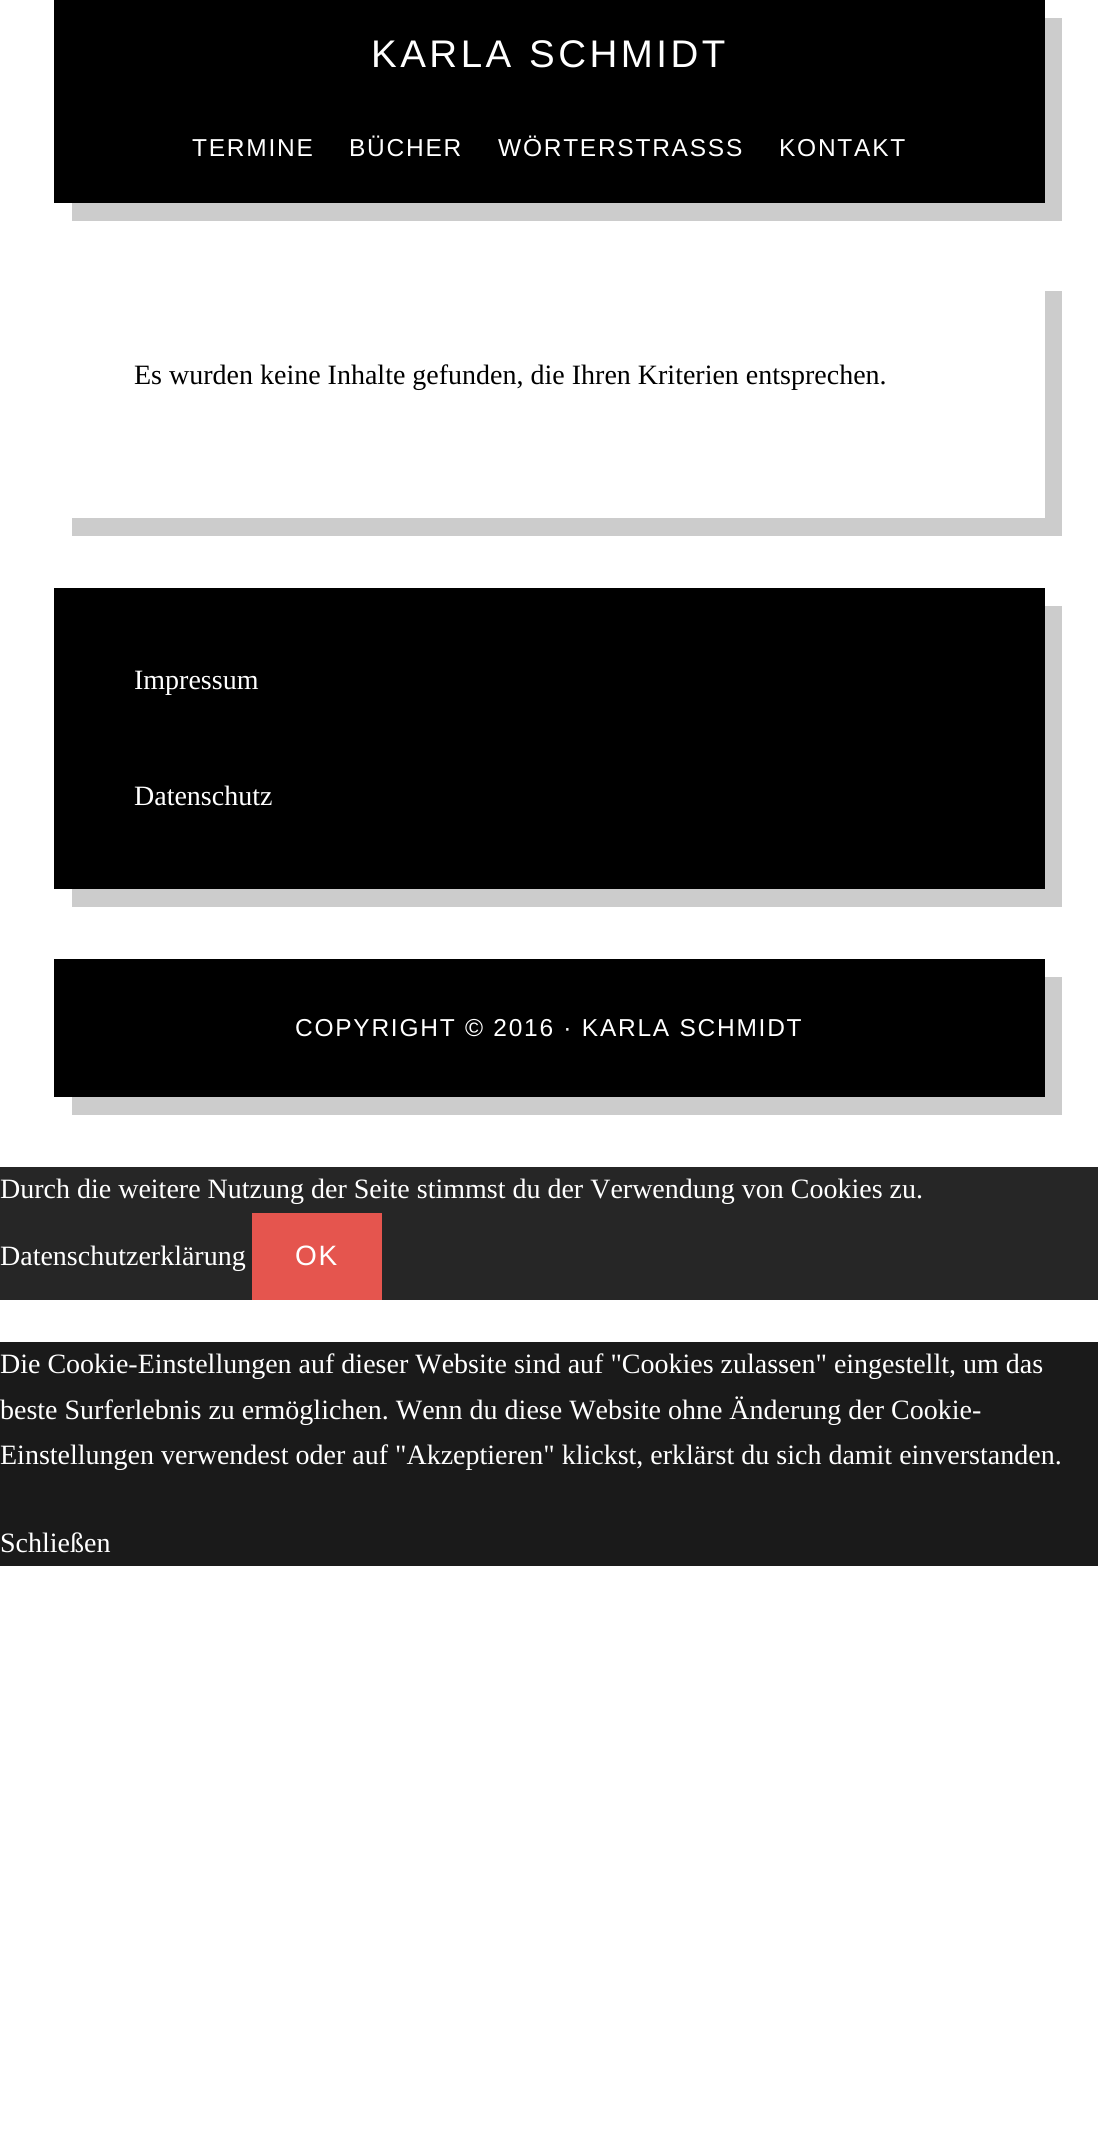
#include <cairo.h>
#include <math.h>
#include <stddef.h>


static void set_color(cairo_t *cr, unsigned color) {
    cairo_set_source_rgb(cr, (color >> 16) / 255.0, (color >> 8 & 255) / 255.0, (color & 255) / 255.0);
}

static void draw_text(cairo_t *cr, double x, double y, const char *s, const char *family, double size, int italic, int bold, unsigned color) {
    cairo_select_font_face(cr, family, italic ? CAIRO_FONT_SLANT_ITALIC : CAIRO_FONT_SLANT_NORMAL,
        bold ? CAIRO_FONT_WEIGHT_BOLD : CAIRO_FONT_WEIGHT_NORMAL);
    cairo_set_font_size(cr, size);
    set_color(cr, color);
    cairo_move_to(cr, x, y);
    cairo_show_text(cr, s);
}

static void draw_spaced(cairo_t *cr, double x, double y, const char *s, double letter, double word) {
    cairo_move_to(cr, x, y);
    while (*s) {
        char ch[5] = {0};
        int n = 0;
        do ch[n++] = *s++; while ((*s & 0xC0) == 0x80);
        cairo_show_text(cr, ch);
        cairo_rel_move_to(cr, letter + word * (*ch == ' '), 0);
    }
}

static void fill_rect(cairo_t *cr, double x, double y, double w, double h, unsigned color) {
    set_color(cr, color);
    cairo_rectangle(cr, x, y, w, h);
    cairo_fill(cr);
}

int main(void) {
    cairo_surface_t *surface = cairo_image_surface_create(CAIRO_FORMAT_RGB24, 1098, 2141);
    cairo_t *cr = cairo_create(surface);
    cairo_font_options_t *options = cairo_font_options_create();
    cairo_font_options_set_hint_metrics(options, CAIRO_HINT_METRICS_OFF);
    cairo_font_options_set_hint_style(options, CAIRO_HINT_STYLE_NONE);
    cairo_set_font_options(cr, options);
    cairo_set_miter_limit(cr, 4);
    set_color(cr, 0xFFFFFF);
    cairo_paint(cr);
    set_color(cr, 0xCCCCCC);
    cairo_new_path(cr);
    cairo_move_to(cr, 72, 203);
    cairo_line_to(cr, 72, 221);
    cairo_line_to(cr, 1062, 221);
    cairo_line_to(cr, 1062, 18);
    cairo_line_to(cr, 1045, 18);
    cairo_line_to(cr, 1045, 203);
    cairo_close_path(cr);
    cairo_fill(cr);
    fill_rect(cr, 54, 0, 991, 203, 0x000000);
    cairo_select_font_face(cr, "Liberation Sans", CAIRO_FONT_SLANT_NORMAL, CAIRO_FONT_WEIGHT_NORMAL);
    cairo_set_font_size(cr, 38.5);
    set_color(cr, 0xFFFFFF);
    draw_spaced(cr, 371, 67, "KARLA SCHMIDT", 3.5, 0);
    cairo_set_font_size(cr, 24.5);
    draw_spaced(cr, 192, 156, "TERMINE", 1.75, 0);
    draw_spaced(cr, 349, 156, "BÜCHER", 1.75, 0);
    draw_spaced(cr, 498, 156, "WÖRTERSTRASSS", 1.75, 0);
    draw_spaced(cr, 779, 156, "KONTAKT", 1.75, 0);
    set_color(cr, 0xCCCCCC);
    cairo_new_path(cr);
    cairo_move_to(cr, 72, 518);
    cairo_line_to(cr, 72, 536);
    cairo_line_to(cr, 1062, 536);
    cairo_line_to(cr, 1062, 291);
    cairo_line_to(cr, 1045, 291);
    cairo_line_to(cr, 1045, 518);
    cairo_close_path(cr);
    cairo_fill(cr);
    draw_text(cr, 134, 384, "Es wurden keine Inhalte gefunden, die Ihren Kriterien entsprechen.", "Liberation Serif", 28, 0, 0, 0x000000);
    set_color(cr, 0xCCCCCC);
    cairo_new_path(cr);
    cairo_move_to(cr, 72, 889);
    cairo_line_to(cr, 72, 907);
    cairo_line_to(cr, 1062, 907);
    cairo_line_to(cr, 1062, 606);
    cairo_line_to(cr, 1045, 606);
    cairo_line_to(cr, 1045, 889);
    cairo_close_path(cr);
    cairo_fill(cr);
    fill_rect(cr, 54, 588, 991, 301, 0x000000);
    draw_text(cr, 134, 689, "Impressum", "Liberation Serif", 28, 0, 0, 0xFFFFFF);
    draw_text(cr, 134, 805, "Datenschutz", "Liberation Serif", 28, 0, 0, 0xFFFFFF);
    set_color(cr, 0xCCCCCC);
    cairo_new_path(cr);
    cairo_move_to(cr, 72, 1097);
    cairo_line_to(cr, 72, 1115);
    cairo_line_to(cr, 1062, 1115);
    cairo_line_to(cr, 1062, 977);
    cairo_line_to(cr, 1045, 977);
    cairo_line_to(cr, 1045, 1097);
    cairo_close_path(cr);
    cairo_fill(cr);
    fill_rect(cr, 54, 959, 991, 138, 0x000000);
    cairo_select_font_face(cr, "Liberation Sans", CAIRO_FONT_SLANT_NORMAL, CAIRO_FONT_WEIGHT_NORMAL);
    cairo_set_font_size(cr, 24.5);
    set_color(cr, 0xFFFFFF);
    draw_spaced(cr, 295, 1036, "COPYRIGHT © 2016 · KARLA SCHMIDT", 1.75, 0);
    fill_rect(cr, 0, 1167, 1098, 133, 0x262626);
    draw_text(cr, 0, 1198, "Durch die weitere Nutzung der Seite stimmst du der Verwendung von Cookies zu.", "Liberation Serif", 28, 0, 0, 0xFFFFFF);
    draw_text(cr, 0, 1265, "Datenschutzerklärung", "Liberation Serif", 28, 0, 0, 0xFFFFFF);
    fill_rect(cr, 252, 1213, 130, 87, 0xE5554E);
    cairo_select_font_face(cr, "Liberation Sans", CAIRO_FONT_SLANT_NORMAL, CAIRO_FONT_WEIGHT_NORMAL);
    set_color(cr, 0xFFFFFF);
    draw_spaced(cr, 295, 1265, "OK", 1.75, 0);
    fill_rect(cr, 0, 1342, 1098, 224, 0x1A1A1A);
    draw_text(cr, 0, 1373, "Die Cookie-Einstellungen auf dieser Website sind auf \"Cookies zulassen\" eingestellt, um das", "Liberation Serif", 28, 0, 0, 0xFFFFFF);
    draw_text(cr, 0, 1419, "beste Surferlebnis zu ermöglichen. Wenn du diese Website ohne Änderung der Cookie-", "Liberation Serif", 28, 0, 0, 0xFFFFFF);
    draw_text(cr, 0, 1464, "Einstellungen verwendest oder auf \"Akzeptieren\" klickst, erklärst du sich damit einverstanden.", "Liberation Serif", 28, 0, 0, 0xFFFFFF);
    draw_text(cr, 0, 1552, "Schließen", "Liberation Serif", 28, 0, 0, 0xFFFFFF);
    cairo_surface_write_to_png(surface, "output.png");
    cairo_font_options_destroy(options);
    cairo_destroy(cr);
    cairo_surface_destroy(surface);
    return 0;
}
